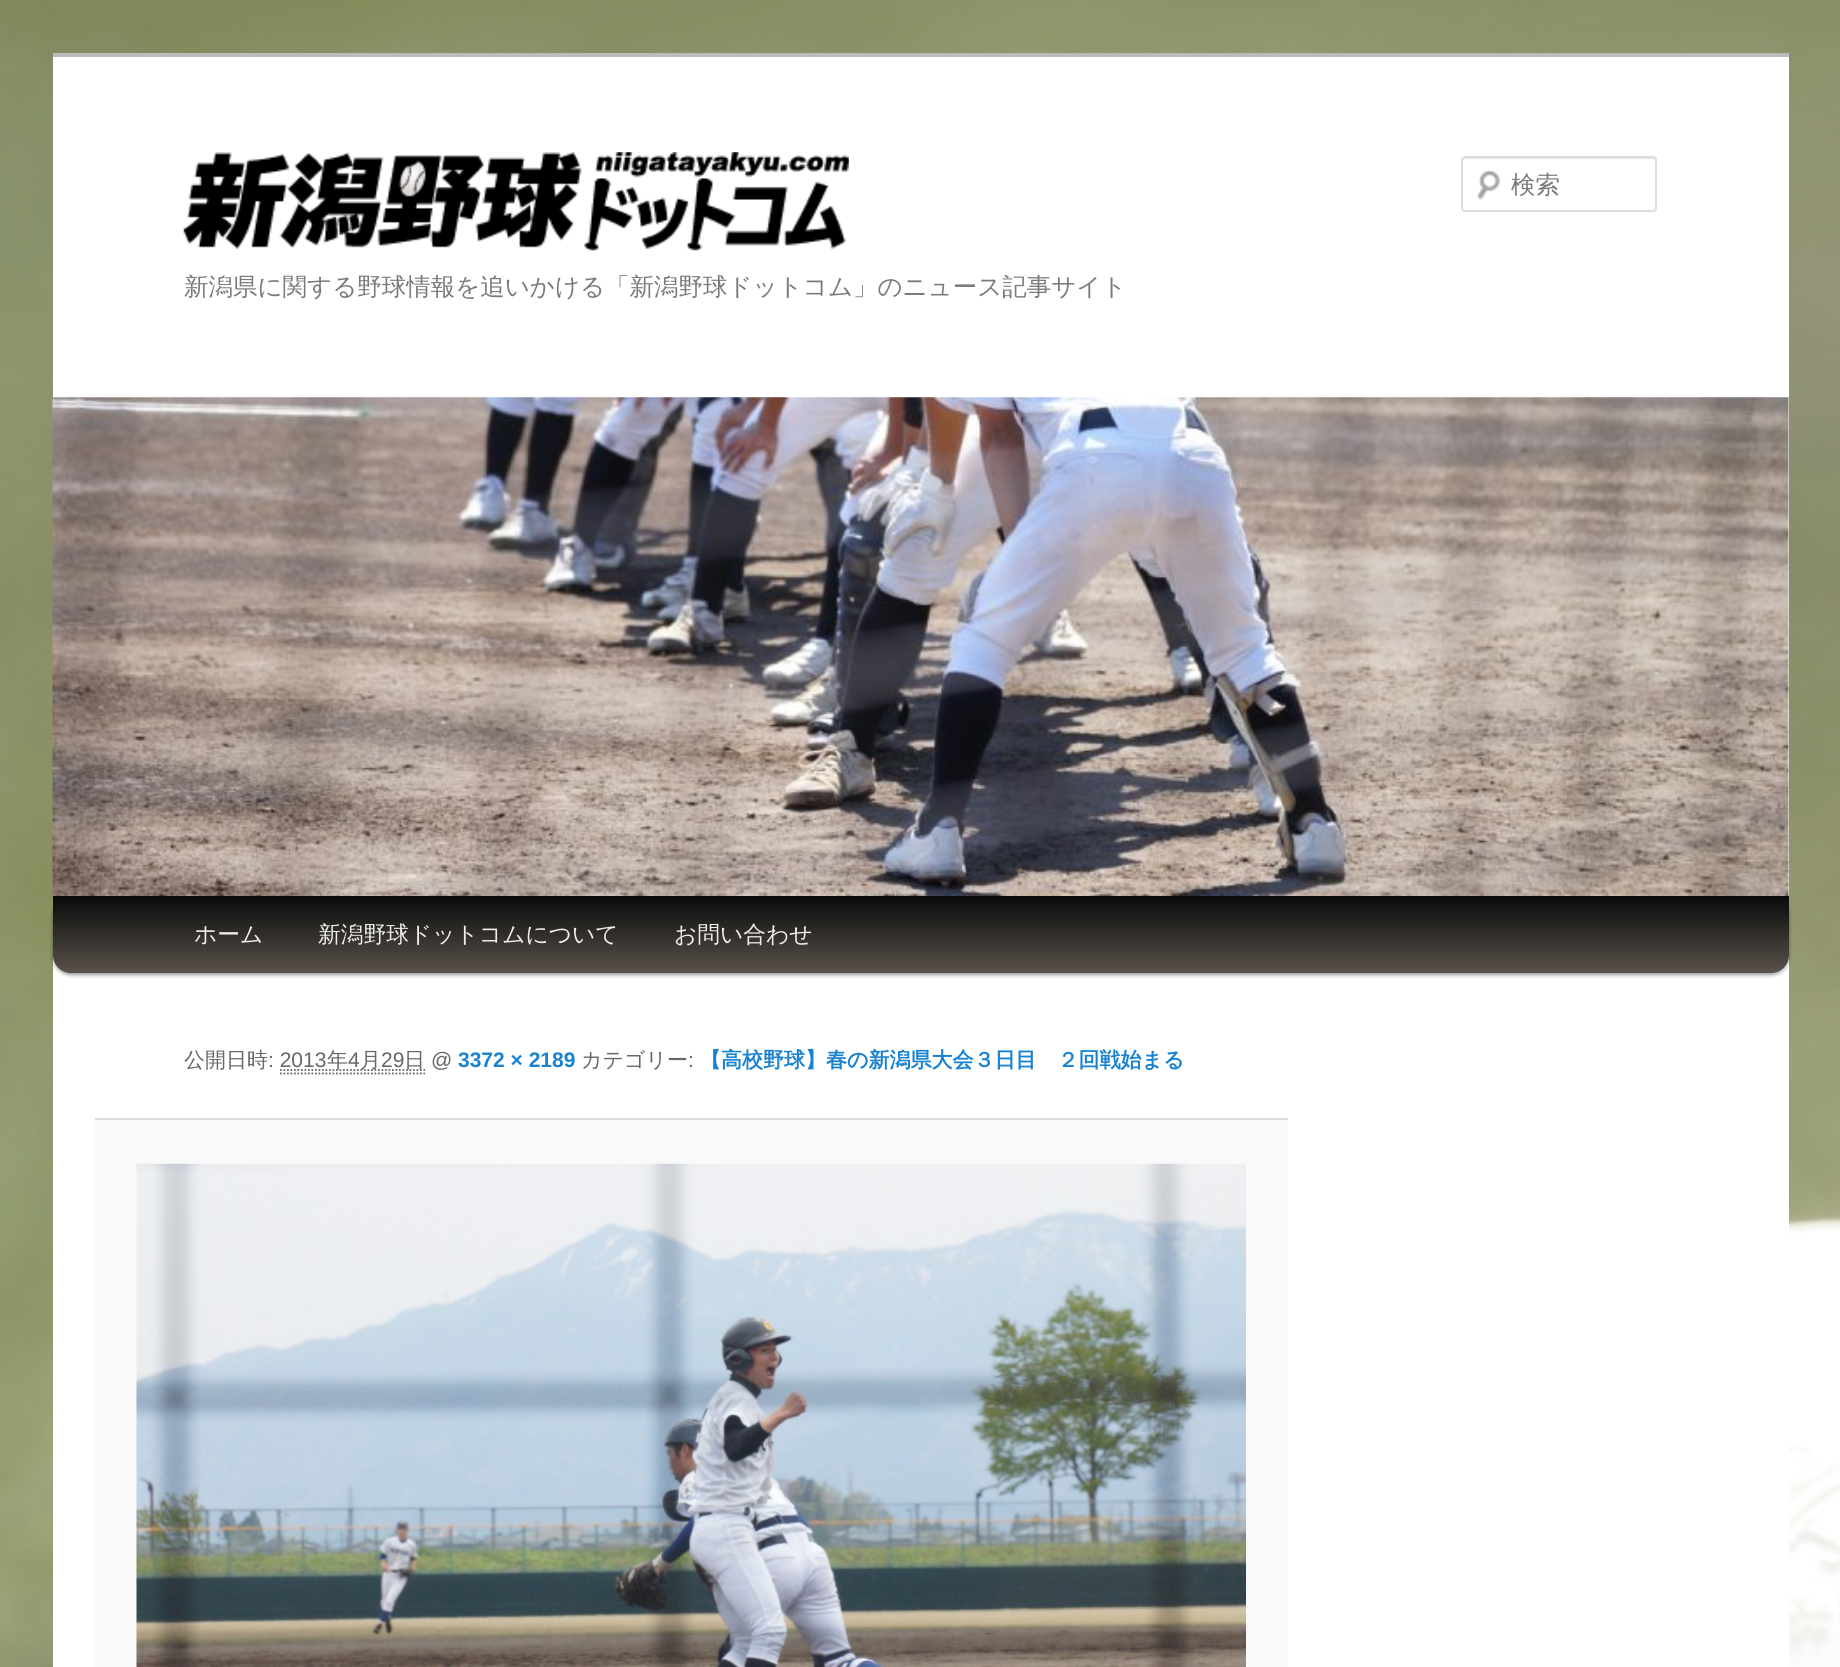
#include <cairo.h>
#include <math.h>
#include <stddef.h>


static void set_color(cairo_t *cr, unsigned color) {
    cairo_set_source_rgb(cr, (color >> 16) / 255.0, (color >> 8 & 255) / 255.0, (color & 255) / 255.0);
}

static void draw_text(cairo_t *cr, double x, double y, const char *s, const char *family, double size, int italic, int bold, unsigned color) {
    cairo_select_font_face(cr, family, italic ? CAIRO_FONT_SLANT_ITALIC : CAIRO_FONT_SLANT_NORMAL,
        bold ? CAIRO_FONT_WEIGHT_BOLD : CAIRO_FONT_WEIGHT_NORMAL);
    cairo_set_font_size(cr, size);
    set_color(cr, color);
    cairo_move_to(cr, x, y);
    cairo_show_text(cr, s);
}

static void fill_rect(cairo_t *cr, double x, double y, double w, double h, unsigned color) {
    set_color(cr, color);
    cairo_rectangle(cr, x, y, w, h);
    cairo_fill(cr);
}

static void rounded_rect(cairo_t *cr, double x, double y, double w, double h, double r) {
    cairo_new_sub_path(cr);
    cairo_arc(cr, x + w - r, y + h - r, r, 0, M_PI / 2);
    cairo_arc(cr, x + r, y + h - r, r, M_PI / 2, M_PI);
    cairo_arc(cr, x + r, y + r, r, M_PI, 1.5 * M_PI);
    cairo_arc(cr, x + w - r, y + r, r, 1.5 * M_PI, 2 * M_PI);
    cairo_close_path(cr);
}

static void draw_shadow(cairo_t *cr, double x, double y, double w, double h, double r, double blur, double alpha) {
    cairo_push_group_with_content(cr, CAIRO_CONTENT_ALPHA);
    cairo_set_operator(cr, CAIRO_OPERATOR_SOURCE);
    for (int i = 15; i >= -15 && fmin(w, h) + blur * i / 3 > 0; i -= 2) {
        double e = blur * i / 6;
        cairo_set_source_rgba(cr, 0, 0, 0, alpha * erfc((i - 1) / 8.5) / 2);
        rounded_rect(cr, x - e, y - e, w + 2 * e, h + 2 * e, fmax(0, fmin(r + e + blur * .6, fmin(w, h) / 2 + e)));
        cairo_fill(cr);
    }
    cairo_pattern_t *soft = cairo_pop_group(cr);
    cairo_mask(cr, soft);
    cairo_pattern_destroy(soft);
}

static void draw_image(cairo_t *cr, const char *path, double x, double y, double w, double h) {
    cairo_surface_t *image = cairo_image_surface_create_from_png(path);
    cairo_save(cr);
    cairo_set_source_surface(cr, image, x, y);
    cairo_rectangle(cr, x, y, w, h);
    cairo_fill(cr);
    cairo_restore(cr);
    cairo_surface_destroy(image);
}

int main(void) {
    cairo_surface_t *surface = cairo_image_surface_create(CAIRO_FORMAT_RGB24, 1840, 1667);
    cairo_t *cr = cairo_create(surface);
    cairo_font_options_t *options = cairo_font_options_create();
    cairo_font_options_set_hint_metrics(options, CAIRO_HINT_METRICS_OFF);
    cairo_font_options_set_hint_style(options, CAIRO_HINT_STYLE_NONE);
    cairo_set_font_options(cr, options);
    cairo_set_miter_limit(cr, 4);
    cairo_pattern_t *gradient;
    set_color(cr, 0xFFFFFF);
    cairo_paint(cr);
    draw_image(cr, "assets/img1.png", 0, 0, 1840, 1667);
    fill_rect(cr, 53, 57, 1736, 1610, 0xFFFFFF);
    fill_rect(cr, 53, 53, 1736, 4, 0xBBBBBB);
    draw_image(cr, "assets/img2.png", 1476, 170, 25, 30);
    set_color(cr, 0xE6E6E6);
    cairo_new_path(cr);
    cairo_move_to(cr, 1465, 159);
    cairo_line_to(cr, 1654, 159);
    cairo_line_to(cr, 1656, 160);
    cairo_line_to(cr, 1656, 161);
    cairo_line_to(cr, 1656, 160);
    cairo_curve_to(cr, 1656, 159, 1655, 158, 1654, 158);
    cairo_line_to(cr, 1465, 158);
    cairo_curve_to(cr, 1464, 158, 1463, 159, 1463, 160);
    cairo_line_to(cr, 1463, 161);
    cairo_curve_to(cr, 1463, 160, 1464, 159, 1465, 159);
    cairo_close_path(cr);
    cairo_fill(cr);
    rounded_rect(cr, 1462, 157, 194, 54, 3);
    set_color(cr, 0xDDDDDD);
    cairo_stroke(cr);
    draw_text(cr, 1511, 193, "検索", "WenQuanYi Zen Hei Medium", 24.5, 0, 0, 0x7A7A7A);
    draw_image(cr, "assets/img3.png", 183, 152, 666, 99);
    draw_text(cr, 184, 295, "新潟県に関する野球情報を追いかける「新潟野球ドットコム」のニュース記事サイト", "WenQuanYi Zen Hei Medium", 24.5, 0, 0, 0x7A7A7A);
    set_color(cr, 0x000000);
    draw_shadow(cr, 53, 898, 1736, 77, 18, 2, 0.4);
    draw_image(cr, "assets/img4.png", 52, 397, 1737, 499);
    gradient = cairo_pattern_create_linear(921, 896, 921, 973);
    cairo_pattern_add_color_stop_rgba(gradient, 0, 0.039, 0.039, 0.039, 1);
    cairo_pattern_add_color_stop_rgba(gradient, 1, 0.349, 0.322, 0.29, 1);
    cairo_set_source(cr, gradient);
    cairo_pattern_destroy(gradient);
    cairo_new_path(cr);
    cairo_move_to(cr, 53, 896);
    cairo_line_to(cr, 1789, 896);
    cairo_line_to(cr, 1789, 955);
    cairo_curve_to(cr, 1789, 965, 1781, 973, 1771, 973);
    cairo_line_to(cr, 71, 973);
    cairo_curve_to(cr, 61, 973, 53, 965, 53, 955);
    cairo_close_path(cr);
    cairo_fill(cr);
    draw_text(cr, 194, 942, "ホーム", "WenQuanYi Zen Hei Medium", 22.75, 0, 0, 0xEEEEEE);
    draw_text(cr, 318, 942, "新潟野球ドットコムについて", "WenQuanYi Zen Hei Medium", 22.75, 0, 0, 0xEEEEEE);
    draw_text(cr, 674, 942, "お問い合わせ", "WenQuanYi Zen Hei Medium", 22.75, 0, 0, 0xEEEEEE);
    draw_text(cr, 184, 1067, "公開日時", "WenQuanYi Zen Hei Medium", 21, 0, 0, 0x666666);
    draw_text(cr, 268, 1067, ": 2013", "Liberation Sans", 21, 0, 0, 0x666666);
    cairo_new_path(cr);
    cairo_move_to(cr, 280, 1070);
    cairo_line_to(cr, 425, 1070);
    cairo_set_line_width(cr, 1.8);
    cairo_set_dash(cr, (double[]){1.75, 1.75}, 2, 0);
    cairo_stroke(cr);
    draw_text(cr, 327, 1067, "年", "WenQuanYi Zen Hei Medium", 21, 0, 0, 0x666666);
    draw_text(cr, 348, 1067, "4", "Liberation Sans", 21, 0, 0, 0x666666);
    draw_text(cr, 360, 1067, "月", "WenQuanYi Zen Hei Medium", 21, 0, 0, 0x666666);
    draw_text(cr, 381, 1067, "29", "Liberation Sans", 21, 0, 0, 0x666666);
    draw_text(cr, 404, 1067, "日", "WenQuanYi Zen Hei Medium", 21, 0, 0, 0x666666);
    cairo_new_path(cr);
    cairo_move_to(cr, 280, 1073.5);
    cairo_line_to(cr, 425, 1073.5);
    cairo_stroke(cr);
    draw_text(cr, 431, 1067, "@", "Liberation Sans", 21, 0, 0, 0x666666);
    draw_text(cr, 458, 1067, "3372 × 2189", "Liberation Sans", 21, 0, 1, 0x1982D1);
    draw_text(cr, 581, 1067, "カテゴリー", "WenQuanYi Zen Hei Medium", 21, 0, 0, 0x666666);
    draw_text(cr, 688, 1067, ":", "Liberation Sans", 21, 0, 0, 0x666666);
    draw_text(cr, 700, 1067, "【高校野球】春の新潟県大会３日目　２回戦始まる", "WenQuanYi Zen Hei", 21, 0, 1, 0x1982D1);
    fill_rect(cr, 95, 1120, 1193, 547, 0xF9F9F9);
    fill_rect(cr, 95, 1118, 1193, 2, 0xDDDDDD);
    draw_image(cr, "assets/img5.png", 136, 1163, 1110, 504);
    cairo_surface_write_to_png(surface, "output.png");
    cairo_font_options_destroy(options);
    cairo_destroy(cr);
    cairo_surface_destroy(surface);
    return 0;
}
